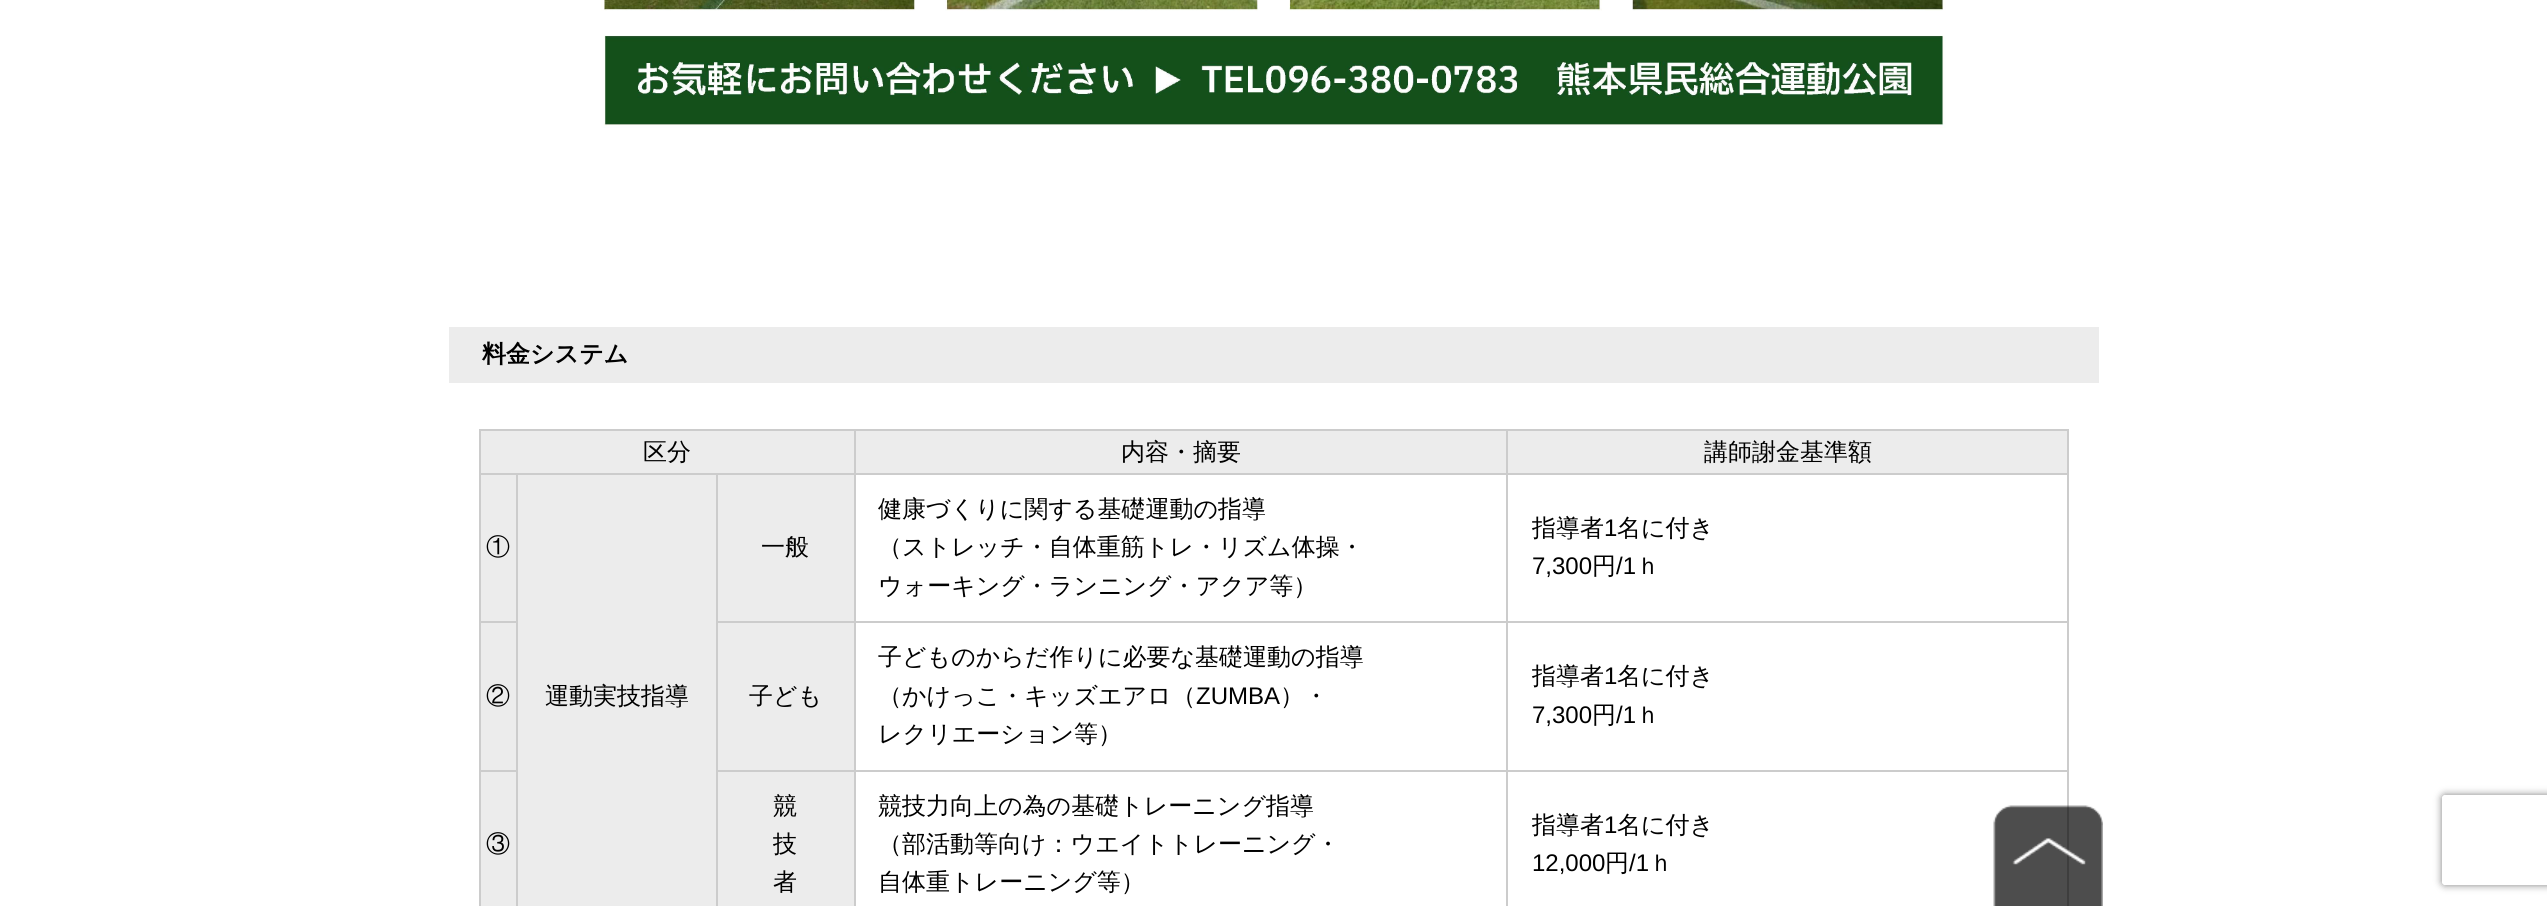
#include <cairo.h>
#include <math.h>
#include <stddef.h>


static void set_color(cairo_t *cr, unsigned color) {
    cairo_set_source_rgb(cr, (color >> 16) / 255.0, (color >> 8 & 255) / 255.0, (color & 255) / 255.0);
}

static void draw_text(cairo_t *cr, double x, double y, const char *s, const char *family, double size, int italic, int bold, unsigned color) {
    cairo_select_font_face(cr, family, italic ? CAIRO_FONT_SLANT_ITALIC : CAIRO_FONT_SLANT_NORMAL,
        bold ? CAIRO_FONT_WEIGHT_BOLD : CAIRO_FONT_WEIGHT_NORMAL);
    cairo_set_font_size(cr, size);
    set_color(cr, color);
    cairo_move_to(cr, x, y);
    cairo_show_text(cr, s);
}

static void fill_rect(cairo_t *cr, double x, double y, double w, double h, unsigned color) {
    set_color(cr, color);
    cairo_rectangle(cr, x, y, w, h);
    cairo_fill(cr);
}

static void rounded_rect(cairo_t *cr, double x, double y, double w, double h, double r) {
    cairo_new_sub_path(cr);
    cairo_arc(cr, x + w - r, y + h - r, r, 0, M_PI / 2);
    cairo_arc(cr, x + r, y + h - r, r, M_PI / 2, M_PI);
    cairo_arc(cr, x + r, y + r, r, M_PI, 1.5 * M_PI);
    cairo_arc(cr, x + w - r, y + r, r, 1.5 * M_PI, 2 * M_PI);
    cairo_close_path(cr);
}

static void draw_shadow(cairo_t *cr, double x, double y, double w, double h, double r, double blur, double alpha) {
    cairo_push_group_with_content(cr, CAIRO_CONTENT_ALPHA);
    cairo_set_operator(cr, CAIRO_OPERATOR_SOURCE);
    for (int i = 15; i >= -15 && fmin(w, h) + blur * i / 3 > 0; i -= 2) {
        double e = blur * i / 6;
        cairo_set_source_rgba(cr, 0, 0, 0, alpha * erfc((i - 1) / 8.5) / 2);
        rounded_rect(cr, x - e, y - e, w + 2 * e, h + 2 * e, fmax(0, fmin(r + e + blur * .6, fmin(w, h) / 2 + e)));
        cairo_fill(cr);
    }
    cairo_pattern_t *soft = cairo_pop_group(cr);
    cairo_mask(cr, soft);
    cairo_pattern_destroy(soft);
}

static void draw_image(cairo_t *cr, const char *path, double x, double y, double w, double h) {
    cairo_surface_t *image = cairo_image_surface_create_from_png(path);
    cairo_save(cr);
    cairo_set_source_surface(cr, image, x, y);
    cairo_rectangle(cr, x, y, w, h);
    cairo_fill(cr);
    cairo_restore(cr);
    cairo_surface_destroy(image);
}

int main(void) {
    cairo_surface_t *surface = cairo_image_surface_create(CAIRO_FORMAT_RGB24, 2547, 906);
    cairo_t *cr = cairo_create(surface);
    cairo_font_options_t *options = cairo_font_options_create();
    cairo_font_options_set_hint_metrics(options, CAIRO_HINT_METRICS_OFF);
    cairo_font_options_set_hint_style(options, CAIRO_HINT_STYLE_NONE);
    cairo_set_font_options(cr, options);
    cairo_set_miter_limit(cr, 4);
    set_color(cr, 0xFFFFFF);
    cairo_paint(cr);
    draw_image(cr, "assets/img1.png", 601, 0, 1345, 128);
    fill_rect(cr, 449, 327, 1650, 56, 0xECECEC);
    draw_text(cr, 482, 362, "料金システム", "WenQuanYi Zen Hei", 24, 0, 1, 0x000000);
    fill_rect(cr, 481, 431, 373, 42, 0xECECEC);
    fill_rect(cr, 1506, 429, 563, 2, 0xCCCCCC);
    fill_rect(cr, 1506, 473, 563, 2, 0xCCCCCC);
    fill_rect(cr, 1506, 621, 563, 2, 0xCCCCCC);
    fill_rect(cr, 1506, 770, 563, 2, 0xCCCCCC);
    fill_rect(cr, 1506, 770, 2, 136, 0xCCCCCC);
    fill_rect(cr, 854, 770, 654, 2, 0xCCCCCC);
    fill_rect(cr, 1506, 621, 2, 150, 0xCCCCCC);
    fill_rect(cr, 854, 621, 654, 2, 0xCCCCCC);
    fill_rect(cr, 1506, 473, 2, 150, 0xCCCCCC);
    fill_rect(cr, 854, 473, 654, 2, 0xCCCCCC);
    fill_rect(cr, 1506, 429, 2, 45, 0xCCCCCC);
    fill_rect(cr, 854, 429, 654, 2, 0xCCCCCC);
    fill_rect(cr, 854, 770, 2, 136, 0xCCCCCC);
    fill_rect(cr, 716, 770, 139, 2, 0xCCCCCC);
    fill_rect(cr, 854, 621, 2, 150, 0xCCCCCC);
    fill_rect(cr, 716, 621, 139, 2, 0xCCCCCC);
    fill_rect(cr, 854, 473, 2, 150, 0xCCCCCC);
    fill_rect(cr, 716, 473, 139, 2, 0xCCCCCC);
    fill_rect(cr, 854, 429, 2, 45, 0xCCCCCC);
    fill_rect(cr, 479, 429, 376, 2, 0xCCCCCC);
    fill_rect(cr, 716, 770, 2, 136, 0xCCCCCC);
    fill_rect(cr, 716, 621, 2, 150, 0xCCCCCC);
    fill_rect(cr, 716, 473, 2, 150, 0xCCCCCC);
    fill_rect(cr, 516, 473, 201, 2, 0xCCCCCC);
    fill_rect(cr, 479, 621, 39, 2, 0xCCCCCC);
    fill_rect(cr, 479, 770, 39, 2, 0xCCCCCC);
    fill_rect(cr, 516, 473, 2, 433, 0xCCCCCC);
    fill_rect(cr, 479, 473, 39, 2, 0xCCCCCC);
    fill_rect(cr, 479, 770, 2, 136, 0xCCCCCC);
    fill_rect(cr, 479, 621, 2, 150, 0xCCCCCC);
    fill_rect(cr, 479, 473, 2, 150, 0xCCCCCC);
    fill_rect(cr, 479, 429, 2, 45, 0xCCCCCC);
    draw_text(cr, 643, 460, "区分", "WenQuanYi Zen Hei Medium", 24, 0, 0, 0x000000);
    fill_rect(cr, 856, 431, 650, 42, 0xECECEC);
    draw_text(cr, 1121, 460, "内容・摘要", "WenQuanYi Zen Hei Medium", 24, 0, 0, 0x000000);
    fill_rect(cr, 1508, 431, 559, 42, 0xECECEC);
    fill_rect(cr, 2067, 770, 2, 136, 0xCCCCCC);
    fill_rect(cr, 2067, 621, 2, 150, 0xCCCCCC);
    fill_rect(cr, 2067, 473, 2, 150, 0xCCCCCC);
    fill_rect(cr, 2067, 429, 2, 45, 0xCCCCCC);
    draw_text(cr, 1704, 460, "講師謝金基準額", "WenQuanYi Zen Hei Medium", 24, 0, 0, 0x000000);
    fill_rect(cr, 481, 475, 35, 146, 0xECECEC);
    draw_text(cr, 486, 555, "①", "WenQuanYi Zen Hei Medium", 24, 0, 0, 0x000000);
    fill_rect(cr, 718, 475, 136, 146, 0xECECEC);
    draw_text(cr, 761, 555, "一般", "WenQuanYi Zen Hei Medium", 24, 0, 0, 0x000000);
    draw_text(cr, 878, 517, "健康づくりに関する基礎運動の指導", "WenQuanYi Zen Hei Medium", 24, 0, 0, 0x000000);
    draw_text(cr, 878, 555, "（ストレッチ・自体重筋トレ・リズム体操・", "WenQuanYi Zen Hei Medium", 24, 0, 0, 0x000000);
    draw_text(cr, 878, 594, "ウォーキング・ランニング・アクア等）", "WenQuanYi Zen Hei Medium", 24, 0, 0, 0x000000);
    draw_text(cr, 1532, 536, "指導者", "WenQuanYi Zen Hei Medium", 24, 0, 0, 0x000000);
    draw_text(cr, 1604, 536, "1", "Liberation Sans", 24, 0, 0, 0x000000);
    draw_text(cr, 1617, 536, "名に付き", "WenQuanYi Zen Hei Medium", 24, 0, 0, 0x000000);
    draw_text(cr, 1532, 574, "7,300", "Liberation Sans", 24, 0, 0, 0x000000);
    draw_text(cr, 1592, 574, "円", "WenQuanYi Zen Hei Medium", 24, 0, 0, 0x000000);
    draw_text(cr, 1616, 574, "/1", "Liberation Sans", 24, 0, 0, 0x000000);
    draw_text(cr, 1636, 574, "ｈ", "WenQuanYi Zen Hei Medium", 24, 0, 0, 0x000000);
    fill_rect(cr, 518, 475, 198, 431, 0xECECEC);
    draw_text(cr, 545, 704, "運動実技指導", "WenQuanYi Zen Hei Medium", 24, 0, 0, 0x000000);
    fill_rect(cr, 481, 623, 35, 147, 0xECECEC);
    draw_text(cr, 486, 704, "②", "WenQuanYi Zen Hei Medium", 24, 0, 0, 0x000000);
    fill_rect(cr, 718, 623, 136, 147, 0xECECEC);
    draw_text(cr, 749, 704, "子ども", "WenQuanYi Zen Hei Medium", 24, 0, 0, 0x000000);
    draw_text(cr, 878, 665, "子どものからだ作りに必要な基礎運動の指導", "WenQuanYi Zen Hei Medium", 24, 0, 0, 0x000000);
    draw_text(cr, 878, 704, "（かけっこ・キッズエアロ（", "WenQuanYi Zen Hei Medium", 24, 0, 0, 0x000000);
    draw_text(cr, 1196, 704, "ZUMBA", "Liberation Sans", 24, 0, 0, 0x000000);
    draw_text(cr, 1280, 704, "）・", "WenQuanYi Zen Hei Medium", 24, 0, 0, 0x000000);
    draw_text(cr, 878, 742, "レクリエーション等）", "WenQuanYi Zen Hei Medium", 24, 0, 0, 0x000000);
    draw_text(cr, 1532, 684, "指導者", "WenQuanYi Zen Hei Medium", 24, 0, 0, 0x000000);
    draw_text(cr, 1604, 684, "1", "Liberation Sans", 24, 0, 0, 0x000000);
    draw_text(cr, 1617, 684, "名に付き", "WenQuanYi Zen Hei Medium", 24, 0, 0, 0x000000);
    draw_text(cr, 1532, 723, "7,300", "Liberation Sans", 24, 0, 0, 0x000000);
    draw_text(cr, 1592, 723, "円", "WenQuanYi Zen Hei Medium", 24, 0, 0, 0x000000);
    draw_text(cr, 1616, 723, "/1", "Liberation Sans", 24, 0, 0, 0x000000);
    draw_text(cr, 1636, 723, "ｈ", "WenQuanYi Zen Hei Medium", 24, 0, 0, 0x000000);
    fill_rect(cr, 481, 772, 35, 134, 0xECECEC);
    draw_text(cr, 486, 852, "③", "WenQuanYi Zen Hei Medium", 24, 0, 0, 0x000000);
    fill_rect(cr, 718, 772, 136, 134, 0xECECEC);
    draw_text(cr, 773, 814, "競", "WenQuanYi Zen Hei Medium", 24, 0, 0, 0x000000);
    draw_text(cr, 773, 852, "技", "WenQuanYi Zen Hei Medium", 24, 0, 0, 0x000000);
    draw_text(cr, 773, 890, "者", "WenQuanYi Zen Hei Medium", 24, 0, 0, 0x000000);
    draw_text(cr, 878, 814, "競技力向上の為の基礎トレーニング指導", "WenQuanYi Zen Hei Medium", 24, 0, 0, 0x000000);
    draw_text(cr, 878, 852, "（部活動等向け：ウエイトトレーニング・", "WenQuanYi Zen Hei Medium", 24, 0, 0, 0x000000);
    draw_text(cr, 878, 890, "自体重トレーニング等）", "WenQuanYi Zen Hei Medium", 24, 0, 0, 0x000000);
    draw_text(cr, 1532, 833, "指導者", "WenQuanYi Zen Hei Medium", 24, 0, 0, 0x000000);
    draw_text(cr, 1604, 833, "1", "Liberation Sans", 24, 0, 0, 0x000000);
    draw_text(cr, 1617, 833, "名に付き", "WenQuanYi Zen Hei Medium", 24, 0, 0, 0x000000);
    draw_text(cr, 1532, 871, "12,000", "Liberation Sans", 24, 0, 0, 0x000000);
    draw_text(cr, 1605, 871, "円", "WenQuanYi Zen Hei Medium", 24, 0, 0, 0x000000);
    draw_text(cr, 1629, 871, "/1", "Liberation Sans", 24, 0, 0, 0x000000);
    draw_text(cr, 1649, 871, "ｈ", "WenQuanYi Zen Hei Medium", 24, 0, 0, 0x000000);
    draw_image(cr, "assets/img2.png", 1993, 805, 110, 101);
    cairo_save(cr);
    cairo_set_fill_rule(cr, CAIRO_FILL_RULE_EVEN_ODD);
    cairo_new_path(cr);
    cairo_move_to(cr, 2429, 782);
    cairo_line_to(cr, 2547, 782);
    cairo_line_to(cr, 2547, 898);
    cairo_line_to(cr, 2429, 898);
    cairo_close_path(cr);
    cairo_move_to(cr, 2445, 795);
    cairo_line_to(cr, 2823, 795);
    cairo_curve_to(cr, 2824.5, 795, 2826, 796.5, 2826, 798);
    cairo_line_to(cr, 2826, 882);
    cairo_curve_to(cr, 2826, 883.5, 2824.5, 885, 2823, 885);
    cairo_line_to(cr, 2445, 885);
    cairo_curve_to(cr, 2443.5, 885, 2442, 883.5, 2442, 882);
    cairo_line_to(cr, 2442, 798);
    cairo_curve_to(cr, 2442, 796.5, 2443.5, 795, 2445, 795);
    cairo_close_path(cr);
    cairo_clip(cr);
    set_color(cr, 0x808080);
    draw_shadow(cr, 2442, 795, 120, 90, 3, 4, 1);
    cairo_restore(cr);
    cairo_surface_write_to_png(surface, "output.png");
    cairo_font_options_destroy(options);
    cairo_destroy(cr);
    cairo_surface_destroy(surface);
    return 0;
}
